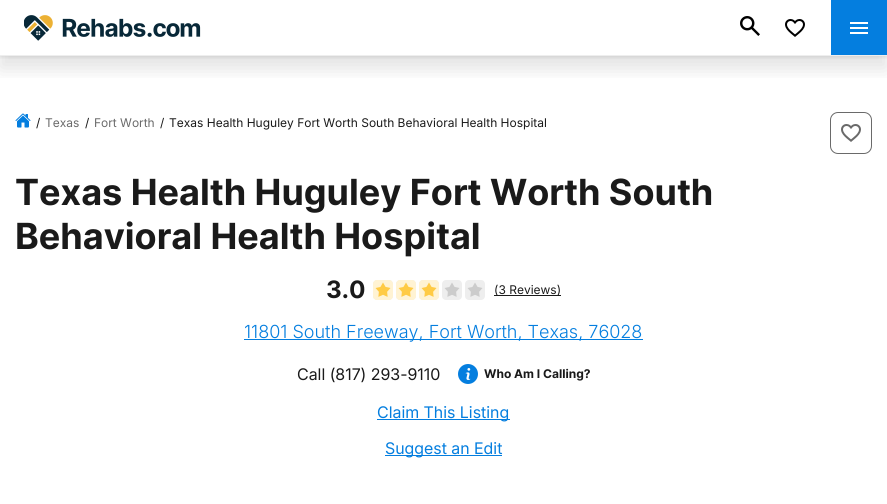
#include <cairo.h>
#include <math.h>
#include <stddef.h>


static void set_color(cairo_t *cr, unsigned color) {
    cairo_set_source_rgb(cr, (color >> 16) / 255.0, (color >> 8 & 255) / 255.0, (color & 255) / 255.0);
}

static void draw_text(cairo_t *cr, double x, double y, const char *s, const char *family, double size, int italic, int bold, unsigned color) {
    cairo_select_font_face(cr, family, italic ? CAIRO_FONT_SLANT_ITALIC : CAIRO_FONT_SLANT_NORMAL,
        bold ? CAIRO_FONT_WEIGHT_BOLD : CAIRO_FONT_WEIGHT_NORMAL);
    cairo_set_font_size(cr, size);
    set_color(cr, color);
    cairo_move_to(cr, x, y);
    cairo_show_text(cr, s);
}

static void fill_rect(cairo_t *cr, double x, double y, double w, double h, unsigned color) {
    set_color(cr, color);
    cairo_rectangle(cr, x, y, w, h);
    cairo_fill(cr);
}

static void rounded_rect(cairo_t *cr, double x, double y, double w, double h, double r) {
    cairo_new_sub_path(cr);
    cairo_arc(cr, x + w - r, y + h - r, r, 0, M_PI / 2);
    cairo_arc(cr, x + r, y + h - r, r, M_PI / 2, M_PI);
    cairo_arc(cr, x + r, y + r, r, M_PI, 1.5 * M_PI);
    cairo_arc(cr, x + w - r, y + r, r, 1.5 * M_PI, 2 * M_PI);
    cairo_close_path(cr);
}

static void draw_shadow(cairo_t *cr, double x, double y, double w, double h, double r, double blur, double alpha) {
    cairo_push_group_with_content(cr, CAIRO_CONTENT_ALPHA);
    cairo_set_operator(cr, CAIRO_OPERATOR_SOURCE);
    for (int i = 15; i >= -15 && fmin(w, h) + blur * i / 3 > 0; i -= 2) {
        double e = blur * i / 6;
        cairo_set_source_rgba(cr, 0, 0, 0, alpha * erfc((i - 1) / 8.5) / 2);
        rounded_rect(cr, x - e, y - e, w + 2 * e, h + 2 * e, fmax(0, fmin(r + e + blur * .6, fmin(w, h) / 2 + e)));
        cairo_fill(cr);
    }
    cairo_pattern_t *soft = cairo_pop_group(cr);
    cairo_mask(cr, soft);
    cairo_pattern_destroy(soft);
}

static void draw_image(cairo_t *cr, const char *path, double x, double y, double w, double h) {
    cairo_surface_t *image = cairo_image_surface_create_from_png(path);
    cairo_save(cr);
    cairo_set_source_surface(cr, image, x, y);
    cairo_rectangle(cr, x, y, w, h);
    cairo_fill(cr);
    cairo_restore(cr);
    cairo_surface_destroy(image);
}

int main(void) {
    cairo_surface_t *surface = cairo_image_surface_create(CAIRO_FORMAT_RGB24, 887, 504);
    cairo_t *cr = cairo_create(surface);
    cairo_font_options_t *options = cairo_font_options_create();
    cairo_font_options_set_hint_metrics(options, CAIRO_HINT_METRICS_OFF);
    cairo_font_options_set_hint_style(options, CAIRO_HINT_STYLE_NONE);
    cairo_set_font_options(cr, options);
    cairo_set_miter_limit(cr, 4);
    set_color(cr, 0xFFFFFF);
    cairo_paint(cr);
    cairo_save(cr);
    cairo_rectangle(cr, 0, 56, 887, 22);
    cairo_clip(cr);
    set_color(cr, 0x000000);
    draw_shadow(cr, 0, 12, 887, 56, 0, 10, 0.12);
    cairo_restore(cr);
    cairo_save(cr);
    cairo_rectangle(cr, 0, 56, 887, 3);
    cairo_clip(cr);
    set_color(cr, 0x000000);
    draw_shadow(cr, 0, 1, 887, 56, 0, 2, 0.1);
    cairo_restore(cr);
    fill_rect(cr, 0, 55, 887, 1, 0xEEEEEE);
    draw_image(cr, "assets/img1.png", 24, 15, 177, 26);
    draw_image(cr, "assets/img2.png", 740, 16, 20, 20);
    draw_image(cr, "assets/img3.png", 785, 19, 20, 18);
    fill_rect(cr, 831, 0, 56, 55, 0x047EDF);
    draw_image(cr, "assets/img4.png", 850, 22, 18, 12);
    draw_image(cr, "assets/img5.png", 15, 113, 16, 15);
    draw_text(cr, 36, 127, "/", "Inter", 12, 0, 0, 0x1A1A1A);
    draw_text(cr, 45, 127, "Texas", "Inter", 12, 0, 0, 0x6A6A6A);
    draw_text(cr, 85, 127, "/", "Inter", 12, 0, 0, 0x1A1A1A);
    draw_text(cr, 94, 127, "Fort Worth", "Inter", 12, 0, 0, 0x6A6A6A);
    draw_text(cr, 160, 127, "/", "Inter", 12, 0, 0, 0x1A1A1A);
    draw_text(cr, 169, 127, "Texas Health Huguley Fort Worth South Behavioral Health Hospital", "Inter", 12, 0, 0, 0x1A1A1A);
    rounded_rect(cr, 830.5, 112.5, 41, 41, 7.5);
    set_color(cr, 0x6A6A6A);
    cairo_set_line_width(cr, 1);
    cairo_stroke(cr);
    draw_image(cr, "assets/img6.png", 841, 124, 20, 18);
    draw_text(cr, 15, 205, "Texas Health Huguley Fort Worth South", "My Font", 36, 0, 1, 0x1A1A1A);
    draw_text(cr, 15, 249, "Behavioral Health Hospital", "My Font", 36, 0, 1, 0x1A1A1A);
    draw_text(cr, 326, 298, "3.0", "My Font", 24, 0, 1, 0x1A1A1A);
    draw_image(cr, "assets/img7.png", 373, 280, 20, 20);
    draw_image(cr, "assets/img8.png", 373, 280, 20, 20);
    draw_image(cr, "assets/img7.png", 396, 280, 20, 20);
    draw_image(cr, "assets/img8.png", 396, 280, 20, 20);
    draw_image(cr, "assets/img7.png", 419, 280, 20, 20);
    draw_image(cr, "assets/img8.png", 419, 280, 20, 20);
    draw_image(cr, "assets/img7.png", 442, 280, 20, 20);
    draw_image(cr, "assets/img7.png", 465, 280, 20, 20);
    fill_rect(cr, 494, 295, 67, 1, 0x1A1A1A);
    draw_text(cr, 494, 294, "(3 Reviews)", "Inter", 12, 0, 0, 0x1A1A1A);
    fill_rect(cr, 244, 339, 399, 1, 0x047EDF);
    draw_text(cr, 244, 338, "11801 South Freeway, Fort Worth, Texas, 76028", "Inter Light", 18, 0, 0, 0x047EDF);
    draw_text(cr, 297, 380, "Call (817) 293-9110", "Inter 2", 16, 0, 0, 0x1A1A1A);
    draw_image(cr, "assets/img9.png", 458, 364, 20, 20);
    draw_text(cr, 484, 378, "Who Am I Calling?", "My Font", 12, 0, 1, 0x1A1A1A);
    fill_rect(cr, 377, 419, 133, 1, 0x047EDF);
    draw_text(cr, 377, 418, "Claim This Listing", "Inter 2", 16, 0, 0, 0x047EDF);
    fill_rect(cr, 385, 455, 117, 1, 0x047EDF);
    draw_text(cr, 385, 454, "Suggest an Edit", "Inter 2", 16, 0, 0, 0x047EDF);
    cairo_surface_write_to_png(surface, "output.png");
    cairo_font_options_destroy(options);
    cairo_destroy(cr);
    cairo_surface_destroy(surface);
    return 0;
}
